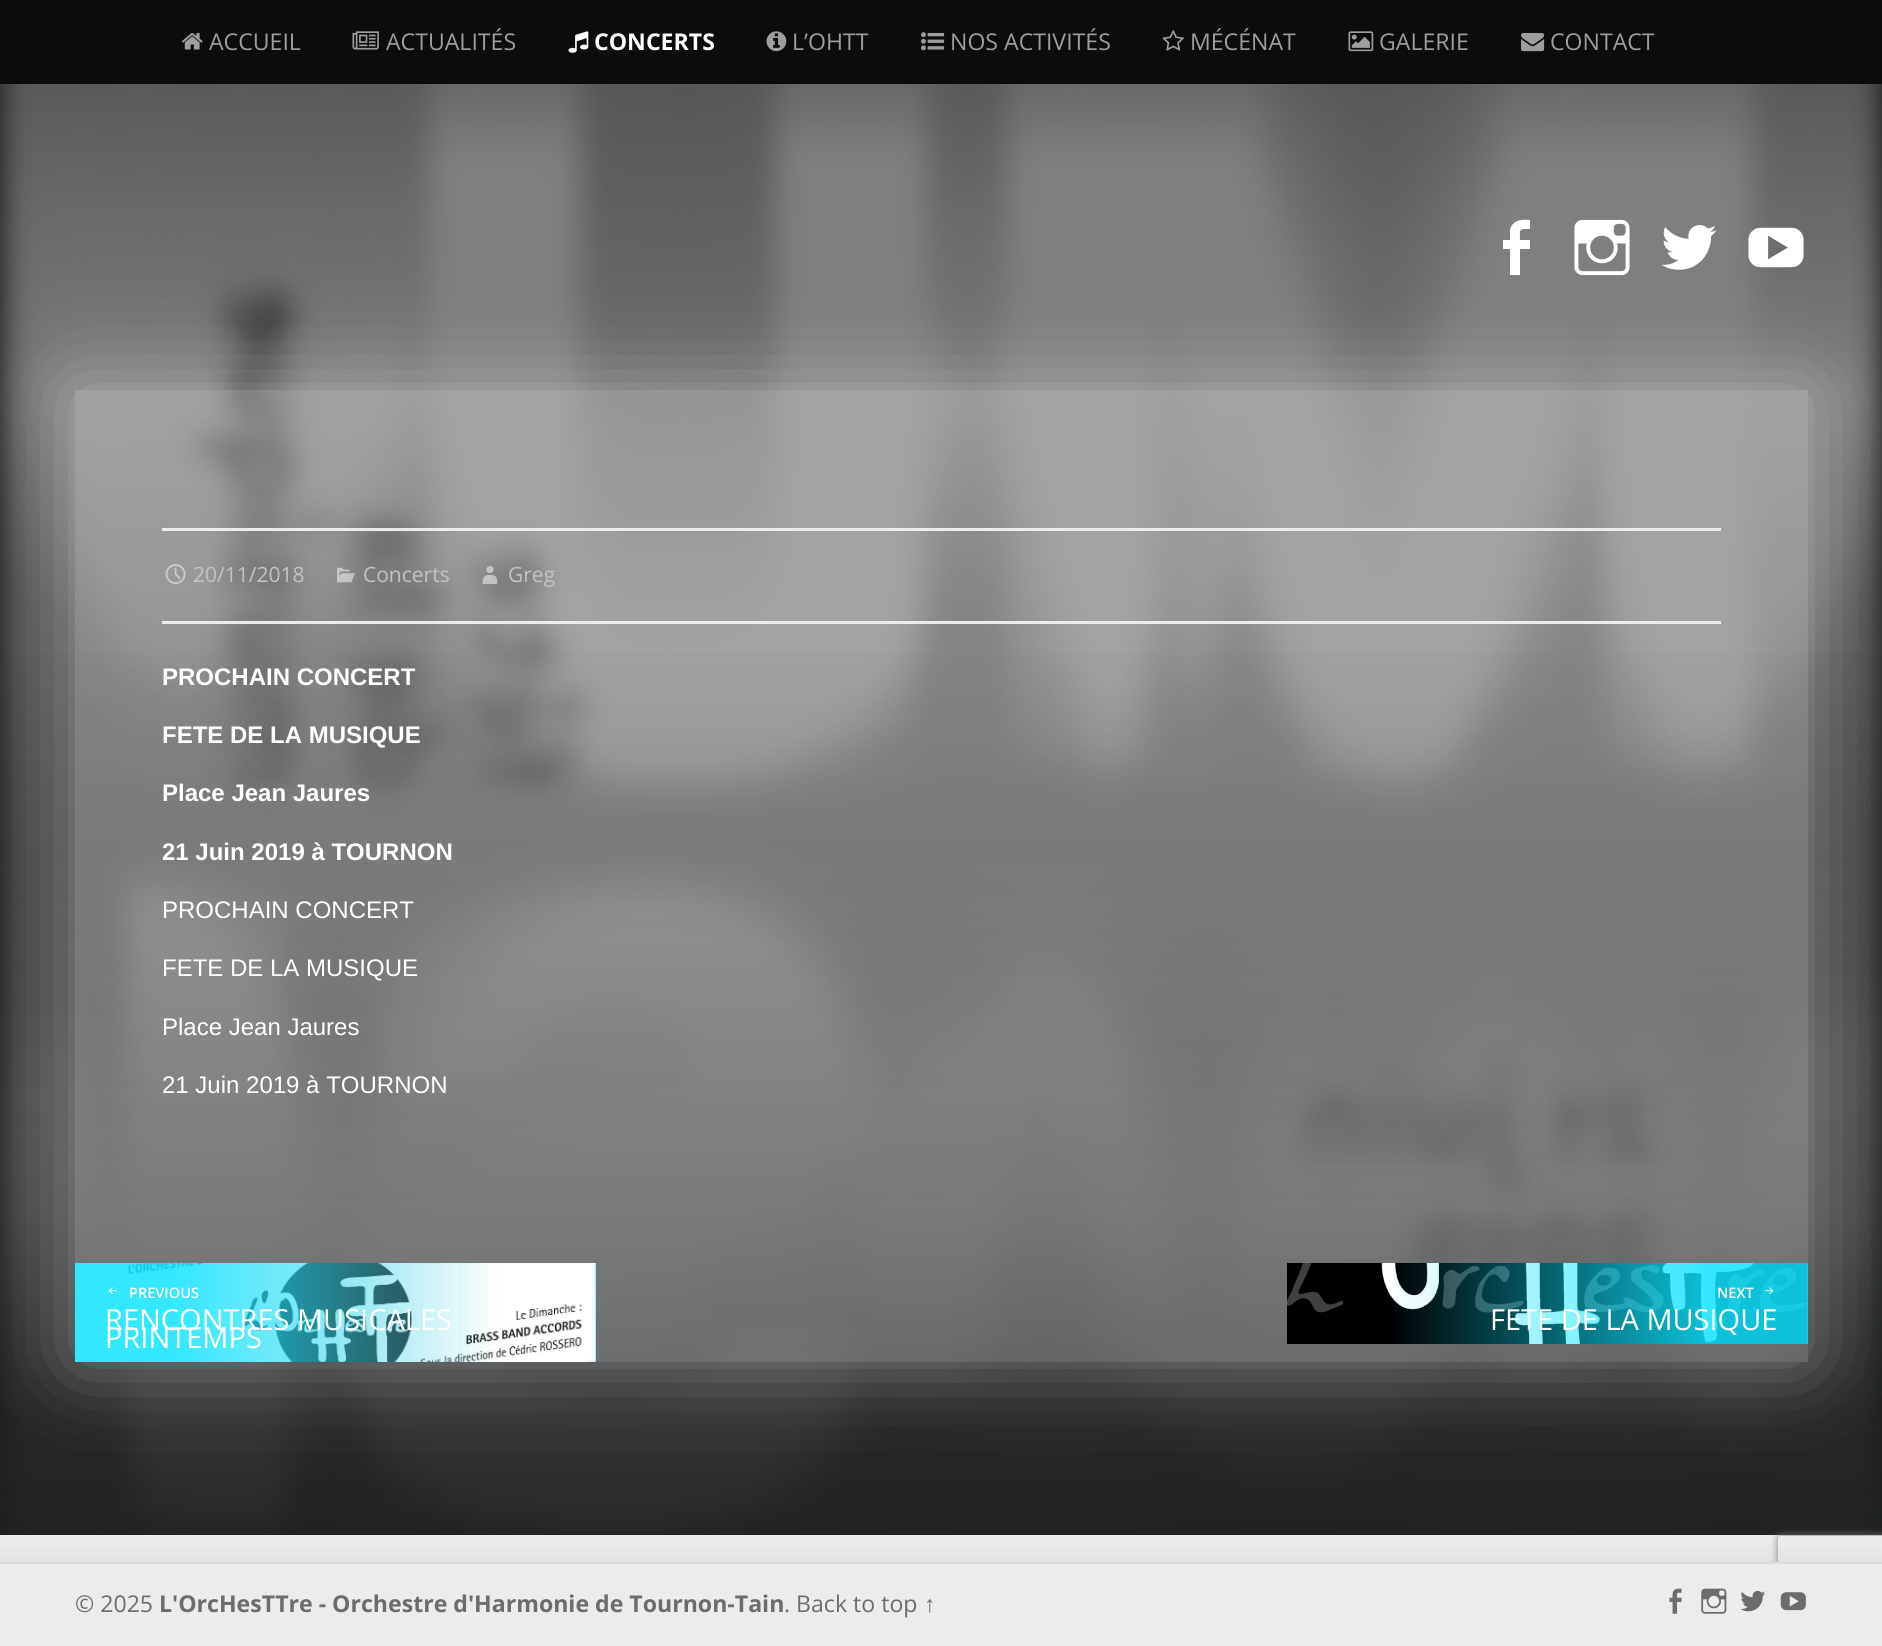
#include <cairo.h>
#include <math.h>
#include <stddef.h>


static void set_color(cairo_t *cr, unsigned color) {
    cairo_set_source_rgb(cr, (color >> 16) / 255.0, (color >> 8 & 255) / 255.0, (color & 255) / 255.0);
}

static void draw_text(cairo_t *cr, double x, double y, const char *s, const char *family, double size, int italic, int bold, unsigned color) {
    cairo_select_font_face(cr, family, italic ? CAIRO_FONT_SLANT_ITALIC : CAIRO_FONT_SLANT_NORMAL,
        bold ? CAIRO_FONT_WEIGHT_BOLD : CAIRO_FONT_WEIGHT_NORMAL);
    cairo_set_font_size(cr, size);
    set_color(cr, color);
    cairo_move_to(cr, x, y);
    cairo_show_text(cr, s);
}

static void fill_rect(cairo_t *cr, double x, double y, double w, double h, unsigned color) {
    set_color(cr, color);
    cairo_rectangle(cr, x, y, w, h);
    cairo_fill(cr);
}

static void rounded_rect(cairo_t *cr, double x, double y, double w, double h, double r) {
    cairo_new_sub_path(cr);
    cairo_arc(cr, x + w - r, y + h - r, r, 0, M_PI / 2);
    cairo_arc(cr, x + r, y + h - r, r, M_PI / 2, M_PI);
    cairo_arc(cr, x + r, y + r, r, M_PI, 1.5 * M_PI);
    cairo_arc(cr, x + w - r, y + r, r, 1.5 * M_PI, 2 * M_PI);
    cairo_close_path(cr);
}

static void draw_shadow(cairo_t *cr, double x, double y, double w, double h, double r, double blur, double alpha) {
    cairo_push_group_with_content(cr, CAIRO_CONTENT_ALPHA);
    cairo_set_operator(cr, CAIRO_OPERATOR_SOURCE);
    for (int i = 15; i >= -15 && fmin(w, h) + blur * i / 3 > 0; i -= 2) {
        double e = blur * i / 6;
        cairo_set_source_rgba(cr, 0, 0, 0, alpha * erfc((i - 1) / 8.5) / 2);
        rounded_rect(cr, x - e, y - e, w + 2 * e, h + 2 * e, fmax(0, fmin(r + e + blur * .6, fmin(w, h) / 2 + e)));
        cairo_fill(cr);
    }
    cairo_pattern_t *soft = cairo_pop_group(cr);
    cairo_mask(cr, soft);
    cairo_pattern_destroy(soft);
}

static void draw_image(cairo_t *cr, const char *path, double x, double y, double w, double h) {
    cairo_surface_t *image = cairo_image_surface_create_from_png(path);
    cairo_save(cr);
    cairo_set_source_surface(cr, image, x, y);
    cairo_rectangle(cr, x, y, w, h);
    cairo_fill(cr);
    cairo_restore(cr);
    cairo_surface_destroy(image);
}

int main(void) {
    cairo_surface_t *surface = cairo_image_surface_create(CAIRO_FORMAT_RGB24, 1882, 1646);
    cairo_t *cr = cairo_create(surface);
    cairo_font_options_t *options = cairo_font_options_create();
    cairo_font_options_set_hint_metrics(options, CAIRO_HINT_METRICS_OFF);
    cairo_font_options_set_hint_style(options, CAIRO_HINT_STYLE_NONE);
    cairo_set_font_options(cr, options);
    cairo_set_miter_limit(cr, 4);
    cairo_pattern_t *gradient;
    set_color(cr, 0x101112);
    cairo_paint(cr);
    fill_rect(cr, 0, 0, 1882, 84, 0x0A0C0E);
    draw_image(cr, "assets/img1.png", 181, 33, 22, 17);
    draw_text(cr, 209, 50, "ACCUEIL", "Open Sans", 23.1, 0, 0, 0x9D9E9F);
    draw_image(cr, "assets/img2.png", 352, 31, 27, 19);
    draw_text(cr, 386, 50, "ACTUALITÉS", "Open Sans", 23.1, 0, 0, 0x9D9E9F);
    draw_image(cr, "assets/img3.png", 568, 31, 21, 22);
    draw_text(cr, 594, 50, "CONCERTS", "Open Sans", 23.1, 0, 1, 0xFFFFFF);
    draw_image(cr, "assets/img4.png", 766, 31, 21, 21);
    draw_text(cr, 792, 50, "L’OHTT", "Open Sans", 23.1, 0, 0, 0x9D9E9F);
    draw_image(cr, "assets/img5.png", 921, 32, 24, 19);
    draw_text(cr, 950, 50, "NOS ACTIVITÉS", "Open Sans", 23.1, 0, 0, 0x9D9E9F);
    draw_image(cr, "assets/img6.png", 1162, 30, 22, 21);
    draw_text(cr, 1190, 50, "MÉCÉNAT", "Open Sans", 23.1, 0, 0, 0x9D9E9F);
    draw_image(cr, "assets/img7.png", 1348, 31, 26, 21);
    draw_text(cr, 1379, 50, "GALERIE", "Open Sans", 23.1, 0, 0, 0x9D9E9F);
    draw_image(cr, "assets/img8.png", 1521, 33, 24, 19);
    draw_text(cr, 1550, 50, "CONTACT", "Open Sans", 23.1, 0, 0, 0x9D9E9F);
    draw_image(cr, "assets/img9.png", 0, 84, 1882, 1451);
    gradient = cairo_pattern_create_linear(941, 622, 941, 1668);
    cairo_pattern_add_color_stop_rgba(gradient, 0, 0.102, 0.11, 0.118, 0);
    cairo_pattern_add_color_stop_rgba(gradient, 1, 0.102, 0.11, 0.118, 1);
    cairo_set_source(cr, gradient);
    cairo_pattern_destroy(gradient);
    cairo_rectangle(cr, 0, 653, 1882, 882);
    cairo_fill(cr);
    set_color(cr, 0xFFFFFF);
    cairo_new_path(cr);
    cairo_move_to(cr, 1520, 240);
    cairo_line_to(cr, 1530, 240);
    cairo_line_to(cr, 1530, 249);
    cairo_line_to(cr, 1520, 249);
    cairo_line_to(cr, 1520, 275);
    cairo_line_to(cr, 1510, 275);
    cairo_line_to(cr, 1510, 249);
    cairo_line_to(cr, 1503, 249);
    cairo_line_to(cr, 1503, 240);
    cairo_line_to(cr, 1510, 240);
    cairo_line_to(cr, 1510, 230);
    cairo_curve_to(cr, 1512, 220, 1522, 219, 1530, 220);
    cairo_line_to(cr, 1530, 229);
    cairo_curve_to(cr, 1518, 229, 1520, 229, 1520, 240);
    cairo_close_path(cr);
    cairo_fill(cr);
    draw_image(cr, "assets/img10.png", 1574, 219, 56, 57);
    draw_image(cr, "assets/img11.png", 1661, 225, 56, 45);
    draw_image(cr, "assets/img12.png", 1748, 227, 56, 41);
    cairo_save(cr);
    cairo_set_fill_rule(cr, CAIRO_FILL_RULE_EVEN_ODD);
    cairo_new_path(cr);
    cairo_move_to(cr, 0, 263);
    cairo_line_to(cr, 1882, 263);
    cairo_line_to(cr, 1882, 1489);
    cairo_line_to(cr, 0, 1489);
    cairo_close_path(cr);
    cairo_move_to(cr, 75, 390);
    cairo_line_to(cr, 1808, 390);
    cairo_line_to(cr, 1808, 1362);
    cairo_line_to(cr, 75, 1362);
    cairo_close_path(cr);
    cairo_clip(cr);
    set_color(cr, 0xFFFFFF);
    draw_shadow(cr, 75, 390, 1733, 972, 0, 42, 0.39);
    cairo_restore(cr);
    cairo_set_source_rgba(cr, 1, 1, 1, 0.28);
    cairo_rectangle(cr, 75, 390, 1733, 972);
    cairo_fill(cr);
    fill_rect(cr, 162, 528, 1559, 3, 0xEAECEE);
    fill_rect(cr, 162, 621, 1559, 3, 0xEAECEE);
    draw_image(cr, "assets/img13.png", 165, 564, 21, 20);
    draw_text(cr, 193, 582, "20/11/2018", "Open Sans", 21, 0, 0, 0xC3C3C3);
    draw_image(cr, "assets/img14.png", 337, 567, 18, 16);
    draw_text(cr, 363, 582, "Concerts", "Open Sans", 21, 0, 0, 0xC3C3C3);
    draw_image(cr, "assets/img15.png", 482, 566, 16, 18);
    draw_text(cr, 508, 582, "Greg", "Open Sans", 21, 0, 0, 0xC3C3C3);
    draw_text(cr, 162, 685, "PROCHAIN CONCERT", "Liberation Sans", 24, 0, 1, 0xFFFFFF);
    draw_text(cr, 162, 743, "FETE DE LA MUSIQUE", "Liberation Sans", 24, 0, 1, 0xFFFFFF);
    draw_text(cr, 162, 801, "Place Jean Jaures", "Liberation Sans", 24, 0, 1, 0xFFFFFF);
    draw_text(cr, 162, 860, "21 Juin 2019 à TOURNON", "Liberation Sans", 24, 0, 1, 0xFFFFFF);
    draw_text(cr, 162, 918, "PROCHAIN CONCERT", "Liberation Sans", 24, 0, 0, 0xFFFFFF);
    draw_text(cr, 162, 976, "FETE DE LA MUSIQUE", "Liberation Sans", 24, 0, 0, 0xFFFFFF);
    draw_text(cr, 162, 1035, "Place Jean Jaures", "Liberation Sans", 24, 0, 0, 0xFFFFFF);
    draw_text(cr, 162, 1093, "21 Juin 2019 à TOURNON", "Liberation Sans", 24, 0, 0, 0xFFFFFF);
    fill_rect(cr, 595, 1263, 1, 99, 0x0FE3FF);
    draw_image(cr, "assets/img16.png", 75, 1263, 521, 99);
    gradient = cairo_pattern_create_linear(596, 1313, 75, 1313);
    cairo_pattern_add_color_stop_rgba(gradient, 0.19, 0.059, 0.89, 1, 0);
    cairo_pattern_add_color_stop_rgba(gradient, 0.81, 0.059, 0.89, 1, 0.85);
    cairo_set_source(cr, gradient);
    cairo_pattern_destroy(gradient);
    cairo_rectangle(cr, 75, 1263, 414, 99);
    cairo_fill(cr);
    draw_image(cr, "assets/img17.png", 108, 1287, 9, 8);
    draw_text(cr, 129, 1298, "PREVIOUS", "Open Sans SemiBold", 14.5, 0, 0, 0xFFFFFF);
    draw_text(cr, 105, 1330, "RENCONTRES MUSICALES", "Open Sans", 29, 0, 0, 0xFFFFFF);
    draw_text(cr, 105, 1348, "PRINTEMPS", "Open Sans", 29, 0, 0, 0xFFFFFF);
    fill_rect(cr, 1807, 1263, 1, 81, 0x0FE3FF);
    draw_image(cr, "assets/img18.png", 1287, 1263, 521, 81);
    gradient = cairo_pattern_create_linear(1287, 1304, 1808, 1304);
    cairo_pattern_add_color_stop_rgba(gradient, 0.19, 0.059, 0.89, 1, 0);
    cairo_pattern_add_color_stop_rgba(gradient, 0.81, 0.059, 0.89, 1, 0.85);
    cairo_set_source(cr, gradient);
    cairo_pattern_destroy(gradient);
    cairo_rectangle(cr, 1394, 1263, 414, 81);
    cairo_fill(cr);
    draw_text(cr, 1717, 1298, "NEXT", "Open Sans SemiBold", 14.5, 0, 0, 0xFFFFFF);
    draw_image(cr, "assets/img19.png", 1765, 1287, 9, 8);
    draw_text(cr, 1490, 1330, "FETE DE LA MUSIQUE", "Open Sans", 29, 0, 0, 0xFFFFFF);
    fill_rect(cr, 0, 1535, 1882, 27, 0xEAECEE);
    set_color(cr, 0x000000);
    draw_shadow(cr, 0, 1562, 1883, 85, 0, 11.5, 0.1);
    cairo_save(cr);
    cairo_set_fill_rule(cr, CAIRO_FILL_RULE_EVEN_ODD);
    cairo_new_path(cr);
    cairo_move_to(cr, 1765, 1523);
    cairo_line_to(cr, 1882, 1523);
    cairo_line_to(cr, 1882, 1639);
    cairo_line_to(cr, 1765, 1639);
    cairo_close_path(cr);
    cairo_move_to(cr, 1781, 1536);
    cairo_line_to(cr, 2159, 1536);
    cairo_curve_to(cr, 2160.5, 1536, 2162, 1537.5, 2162, 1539);
    cairo_line_to(cr, 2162, 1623);
    cairo_curve_to(cr, 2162, 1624.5, 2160.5, 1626, 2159, 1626);
    cairo_line_to(cr, 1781, 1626);
    cairo_curve_to(cr, 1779.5, 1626, 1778, 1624.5, 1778, 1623);
    cairo_line_to(cr, 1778, 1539);
    cairo_curve_to(cr, 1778, 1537.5, 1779.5, 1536, 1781, 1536);
    cairo_close_path(cr);
    cairo_clip(cr);
    set_color(cr, 0x808080);
    draw_shadow(cr, 1778, 1536, 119, 90, 3, 4, 1);
    cairo_restore(cr);
    fill_rect(cr, 0, 1564, 1882, 82, 0xEAECEE);
    fill_rect(cr, 0, 1562, 1882, 2, 0xDADCDE);
    draw_text(cr, 75, 1612, "© 2025", "Open Sans", 23.1, 0, 0, 0x6A6C6E);
    draw_text(cr, 159, 1612, "L'OrcHesTTre - Orchestre d'Harmonie de Tournon-Tain", "Open Sans", 23.1, 0, 1, 0x6A6C6E);
    draw_text(cr, 784, 1612, ". Back to top", "Open Sans", 23.1, 0, 0, 0x6A6C6E);
    draw_text(cr, 924, 1612, "↑", "Liberation Sans", 23.1, 0, 0, 0x6A6C6E);
    draw_image(cr, "assets/img20.png", 1669, 1588, 13, 26);
    draw_image(cr, "assets/img21.png", 1701, 1588, 26, 26);
    draw_image(cr, "assets/img22.png", 1740, 1590, 26, 22);
    draw_image(cr, "assets/img23.png", 1780, 1592, 26, 19);
    cairo_surface_write_to_png(surface, "output.png");
    cairo_font_options_destroy(options);
    cairo_destroy(cr);
    cairo_surface_destroy(surface);
    return 0;
}
